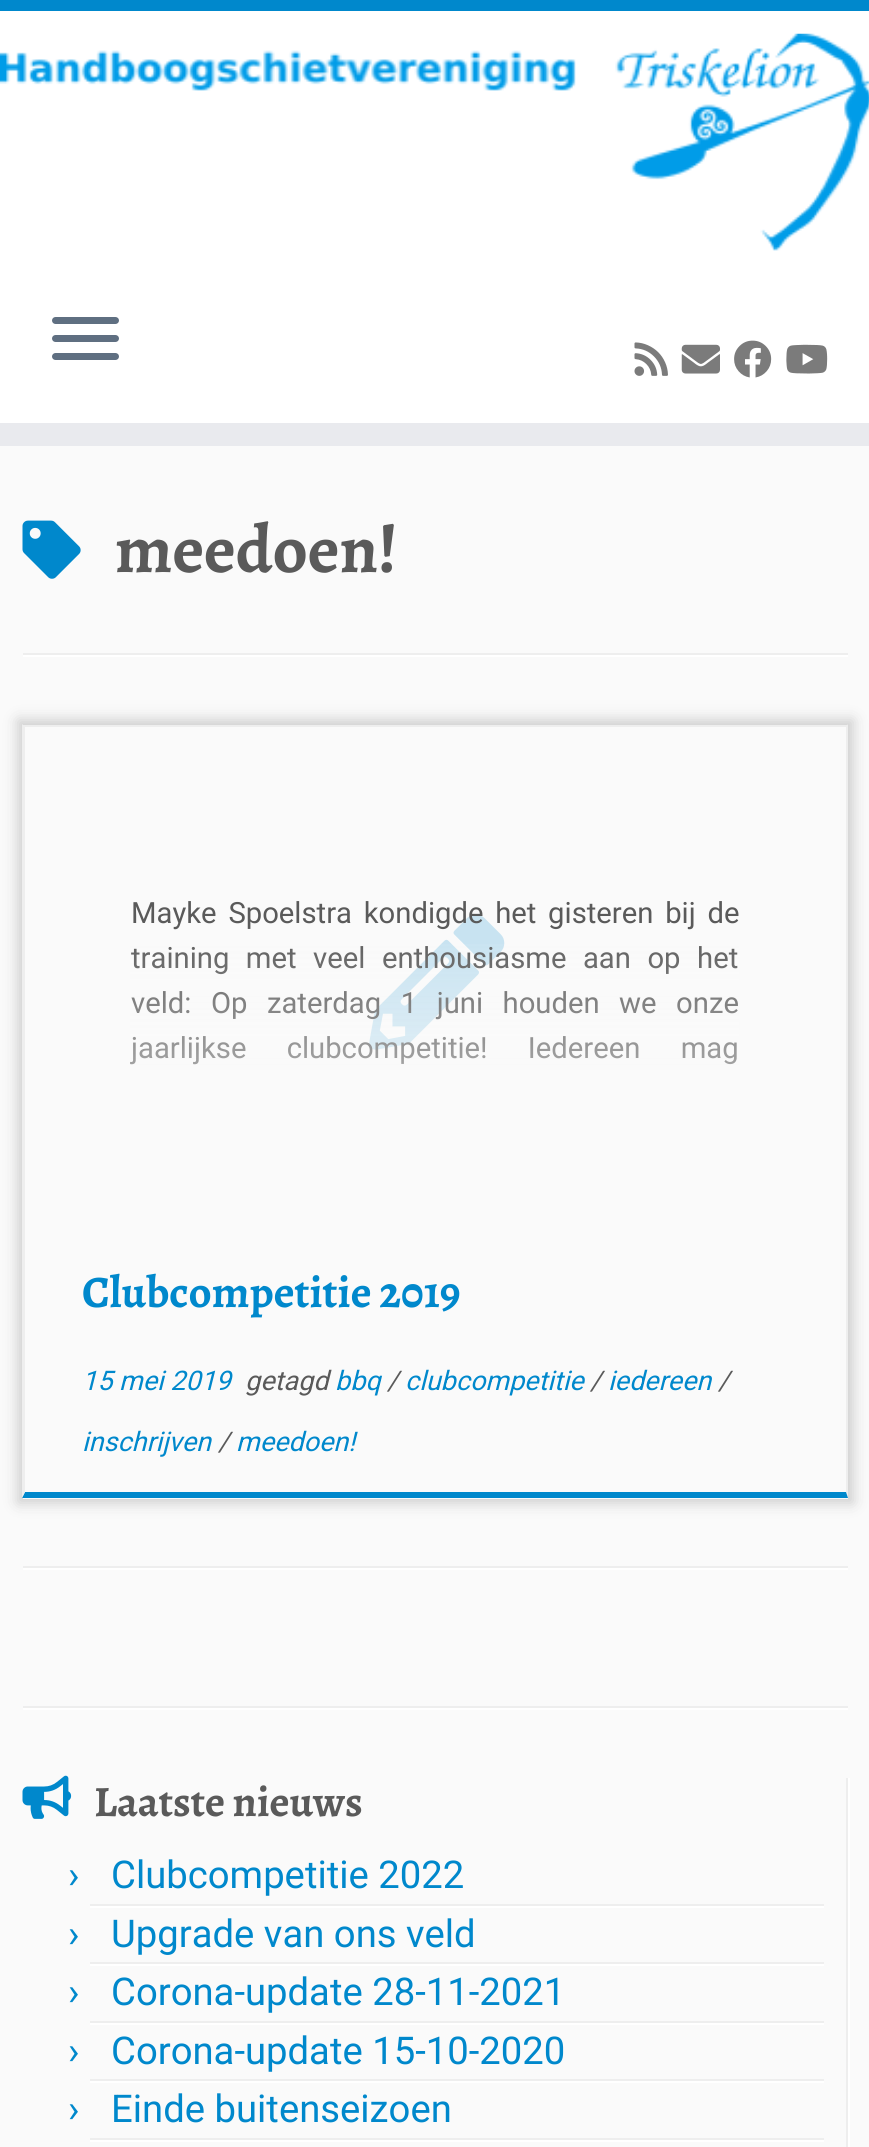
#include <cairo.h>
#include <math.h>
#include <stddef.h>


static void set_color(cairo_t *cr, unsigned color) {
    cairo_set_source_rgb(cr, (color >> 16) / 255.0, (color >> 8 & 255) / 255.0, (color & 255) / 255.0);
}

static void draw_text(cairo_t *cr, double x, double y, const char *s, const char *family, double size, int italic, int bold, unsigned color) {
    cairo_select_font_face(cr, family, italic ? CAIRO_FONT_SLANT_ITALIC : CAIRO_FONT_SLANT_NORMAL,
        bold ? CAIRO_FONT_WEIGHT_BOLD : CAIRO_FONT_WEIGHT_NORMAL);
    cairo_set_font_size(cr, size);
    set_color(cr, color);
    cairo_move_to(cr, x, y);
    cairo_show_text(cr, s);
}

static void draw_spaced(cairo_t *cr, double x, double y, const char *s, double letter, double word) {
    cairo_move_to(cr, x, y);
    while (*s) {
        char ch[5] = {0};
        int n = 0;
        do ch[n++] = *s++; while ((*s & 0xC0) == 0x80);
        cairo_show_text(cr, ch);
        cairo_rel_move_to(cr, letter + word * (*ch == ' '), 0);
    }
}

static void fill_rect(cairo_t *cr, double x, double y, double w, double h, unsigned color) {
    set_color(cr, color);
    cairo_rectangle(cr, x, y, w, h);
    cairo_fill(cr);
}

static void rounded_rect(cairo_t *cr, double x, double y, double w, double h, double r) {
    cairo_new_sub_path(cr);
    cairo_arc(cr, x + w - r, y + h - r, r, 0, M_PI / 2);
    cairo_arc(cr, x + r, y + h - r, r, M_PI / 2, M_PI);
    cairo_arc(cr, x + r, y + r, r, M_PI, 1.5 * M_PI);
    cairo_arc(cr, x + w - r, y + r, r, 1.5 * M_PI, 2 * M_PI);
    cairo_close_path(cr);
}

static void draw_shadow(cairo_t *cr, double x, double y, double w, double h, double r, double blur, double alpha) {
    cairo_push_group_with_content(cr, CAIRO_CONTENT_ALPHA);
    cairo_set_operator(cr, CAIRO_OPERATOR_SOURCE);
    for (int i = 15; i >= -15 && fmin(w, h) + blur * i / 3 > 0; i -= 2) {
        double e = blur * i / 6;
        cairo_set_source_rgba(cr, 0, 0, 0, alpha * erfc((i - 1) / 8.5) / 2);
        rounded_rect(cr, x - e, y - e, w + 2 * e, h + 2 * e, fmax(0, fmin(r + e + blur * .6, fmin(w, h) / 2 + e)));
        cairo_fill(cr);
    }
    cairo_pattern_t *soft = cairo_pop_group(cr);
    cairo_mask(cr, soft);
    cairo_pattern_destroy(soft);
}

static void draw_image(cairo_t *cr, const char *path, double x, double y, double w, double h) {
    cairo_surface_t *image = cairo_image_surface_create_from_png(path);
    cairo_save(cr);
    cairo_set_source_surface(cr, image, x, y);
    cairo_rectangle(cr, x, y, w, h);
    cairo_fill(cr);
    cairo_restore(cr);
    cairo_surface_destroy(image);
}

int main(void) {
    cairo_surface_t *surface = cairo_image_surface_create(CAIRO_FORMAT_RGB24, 869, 2147);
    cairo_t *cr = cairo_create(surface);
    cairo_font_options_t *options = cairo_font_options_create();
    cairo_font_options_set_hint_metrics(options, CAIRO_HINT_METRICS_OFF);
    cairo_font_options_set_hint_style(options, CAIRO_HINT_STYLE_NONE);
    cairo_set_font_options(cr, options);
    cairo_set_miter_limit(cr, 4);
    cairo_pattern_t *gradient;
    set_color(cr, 0xFAFAFA);
    cairo_paint(cr);
    fill_rect(cr, 0, 11, 869, 412, 0xFFFFFF);
    fill_rect(cr, 0, 0, 869, 11, 0x0088CC);
    fill_rect(cr, 0, 423, 869, 23, 0xE9EAEE);
    draw_image(cr, "assets/img1.png", 0, 33, 869, 218);
    set_color(cr, 0x5F6F81);
    rounded_rect(cr, 52, 317, 67, 7, 3.5);
    cairo_fill(cr);
    rounded_rect(cr, 52, 335, 67, 7, 3.5);
    cairo_fill(cr);
    rounded_rect(cr, 52, 353, 67, 7, 3.5);
    cairo_fill(cr);
    draw_image(cr, "assets/img2.png", 634, 342, 34, 34);
    draw_image(cr, "assets/img3.png", 681, 344, 39, 30);
    draw_image(cr, "assets/img4.png", 734, 340, 38, 38);
    draw_image(cr, "assets/img5.png", 786, 344, 42, 30);
    draw_image(cr, "assets/img6.png", 22, 520, 59, 59);
    draw_text(cr, 115, 572, "meedoen!", "Alegreya", 68.5, 0, 1, 0x5A5A5A);
    fill_rect(cr, 23, 653, 825, 2, 0xEEEEEE);
    fill_rect(cr, 23, 655, 825, 2, 0xFFFFFF);
    cairo_save(cr);
    cairo_set_fill_rule(cr, CAIRO_FILL_RULE_EVEN_ODD);
    cairo_new_path(cr);
    cairo_move_to(cr, 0, 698);
    cairo_line_to(cr, 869, 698);
    cairo_line_to(cr, 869, 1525);
    cairo_line_to(cr, 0, 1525);
    cairo_close_path(cr);
    cairo_move_to(cr, 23, 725);
    cairo_line_to(cr, 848, 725);
    cairo_line_to(cr, 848, 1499);
    cairo_line_to(cr, 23, 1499);
    cairo_close_path(cr);
    cairo_clip(cr);
    set_color(cr, 0xCCCCCC);
    draw_shadow(cr, 18, 720, 835, 783, 0, 7, 1);
    cairo_restore(cr);
    fill_rect(cr, 23, 725, 825, 2, 0xEEEEEE);
    cairo_new_path(cr);
    cairo_move_to(cr, 848, 724);
    cairo_line_to(cr, 848, 1498);
    cairo_line_to(cr, 846, 1492);
    cairo_line_to(cr, 846, 727);
    cairo_close_path(cr);
    cairo_fill(cr);
    set_color(cr, 0x0088CC);
    cairo_new_path(cr);
    cairo_move_to(cr, 848, 1498);
    cairo_line_to(cr, 22, 1498);
    cairo_line_to(cr, 25, 1492);
    cairo_line_to(cr, 846, 1492);
    cairo_close_path(cr);
    cairo_fill(cr);
    set_color(cr, 0xEEEEEE);
    cairo_new_path(cr);
    cairo_move_to(cr, 22, 1498);
    cairo_line_to(cr, 22, 724);
    cairo_line_to(cr, 25, 727);
    cairo_line_to(cr, 25, 1492);
    cairo_close_path(cr);
    cairo_fill(cr);
    draw_image(cr, "assets/img7.png", 369, 914, 136, 136);
    cairo_select_font_face(cr, "Roboto", CAIRO_FONT_SLANT_NORMAL, CAIRO_FONT_WEIGHT_NORMAL);
    cairo_set_font_size(cr, 29.25);
    set_color(cr, 0x5A5A5A);
    draw_spaced(cr, 131, 923, "Mayke Spoelstra kondigde het gisteren bij de", 0, 4.5);
    draw_spaced(cr, 131, 968, "training met veel enthousiasme aan op het", 0, 9.25);
    draw_spaced(cr, 131, 1013, "veld: Op zaterdag 1 juni houden we onze", 0, 12.25);
    draw_spaced(cr, 131, 1058, "jaarlijkse clubcompetitie! Iedereen mag", 0, 33);
    gradient = cairo_pattern_create_linear(435, 929, 435, 1233);
    cairo_pattern_add_color_stop_rgba(gradient, 0, 0.98, 0.98, 0.98, 0);
    cairo_pattern_add_color_stop_rgba(gradient, 1, 0.98, 0.98, 0.98, 1);
    cairo_set_source(cr, gradient);
    cairo_pattern_destroy(gradient);
    cairo_rectangle(cr, 130, 944, 609, 121);
    cairo_fill(cr);
    draw_text(cr, 82, 1307, "Clubcompetitie 2019", "Alegreya", 45, 0, 1, 0x0088CC);
    draw_text(cr, 82, 1390, "15 mei 2019", "Roboto", 27, 1, 0, 0x0088CC);
    draw_text(cr, 245, 1390, "getagd", "Roboto", 27, 1, 0, 0x5A5A5A);
    draw_text(cr, 335, 1390, "bbq", "Roboto", 27, 1, 0, 0x0088CC);
    draw_text(cr, 387, 1390, "/", "Roboto", 27, 1, 0, 0x5A5A5A);
    draw_text(cr, 405, 1390, "clubcompetitie", "Roboto", 27, 1, 0, 0x0088CC);
    draw_text(cr, 590, 1390, "/", "Roboto", 27, 1, 0, 0x5A5A5A);
    draw_text(cr, 608, 1390, "iedereen", "Roboto", 27, 1, 0, 0x0088CC);
    draw_text(cr, 718, 1390, "/", "Roboto", 27, 1, 0, 0x5A5A5A);
    draw_text(cr, 82, 1451, "inschrijven", "Roboto", 27, 1, 0, 0x0088CC);
    draw_text(cr, 218, 1451, "/", "Roboto", 27, 1, 0, 0x5A5A5A);
    draw_text(cr, 236, 1451, "meedoen!", "Roboto", 27, 1, 0, 0x0088CC);
    fill_rect(cr, 23, 1566, 825, 2, 0xEEEEEE);
    fill_rect(cr, 23, 1568, 825, 2, 0xFFFFFF);
    fill_rect(cr, 23, 1706, 825, 2, 0xEEEEEE);
    fill_rect(cr, 23, 1708, 825, 2, 0xFFFFFF);
    fill_rect(cr, 846, 1778, 2, 369, 0xEEEEEE);
    draw_image(cr, "assets/img8.png", 22, 1775, 50, 44);
    draw_text(cr, 94, 1816, "Laatste nieuws", "Alegreya", 43.25, 0, 1, 0x5A5A5A);
    fill_rect(cr, 90, 1904, 734, 2, 0xEEEEEE);
    draw_text(cr, 68, 1888, "›", "Roboto", 38.25, 0, 0, 0x0088CC);
    draw_text(cr, 111, 1888, "Clubcompetitie 2022", "Roboto", 38.25, 0, 0, 0x0088CC);
    fill_rect(cr, 90, 1906, 734, 2, 0xFFFFFF);
    fill_rect(cr, 90, 1962, 734, 2, 0xEEEEEE);
    draw_text(cr, 68, 1947, "›", "Roboto", 38.25, 0, 0, 0x0088CC);
    draw_text(cr, 111, 1947, "Upgrade van ons veld", "Roboto", 38.25, 0, 0, 0x0088CC);
    fill_rect(cr, 90, 1964, 734, 2, 0xFFFFFF);
    fill_rect(cr, 90, 2021, 734, 2, 0xEEEEEE);
    draw_text(cr, 68, 2005, "›", "Roboto", 38.25, 0, 0, 0x0088CC);
    draw_text(cr, 111, 2005, "Corona-update 28-11-2021", "Roboto", 38.25, 0, 0, 0x0088CC);
    fill_rect(cr, 90, 2023, 734, 2, 0xFFFFFF);
    fill_rect(cr, 90, 2079, 734, 2, 0xEEEEEE);
    draw_text(cr, 68, 2064, "›", "Roboto", 38.25, 0, 0, 0x0088CC);
    draw_text(cr, 111, 2064, "Corona-update 15-10-2020", "Roboto", 38.25, 0, 0, 0x0088CC);
    fill_rect(cr, 90, 2081, 734, 2, 0xFFFFFF);
    fill_rect(cr, 90, 2138, 734, 2, 0xEEEEEE);
    draw_text(cr, 68, 2122, "›", "Roboto", 38.25, 0, 0, 0x0088CC);
    draw_text(cr, 111, 2122, "Einde buitenseizoen", "Roboto", 38.25, 0, 0, 0x0088CC);
    fill_rect(cr, 90, 2140, 734, 2, 0xFFFFFF);
    fill_rect(cr, 848, 1778, 2, 369, 0xFFFFFF);
    cairo_surface_write_to_png(surface, "output.png");
    cairo_font_options_destroy(options);
    cairo_destroy(cr);
    cairo_surface_destroy(surface);
    return 0;
}
